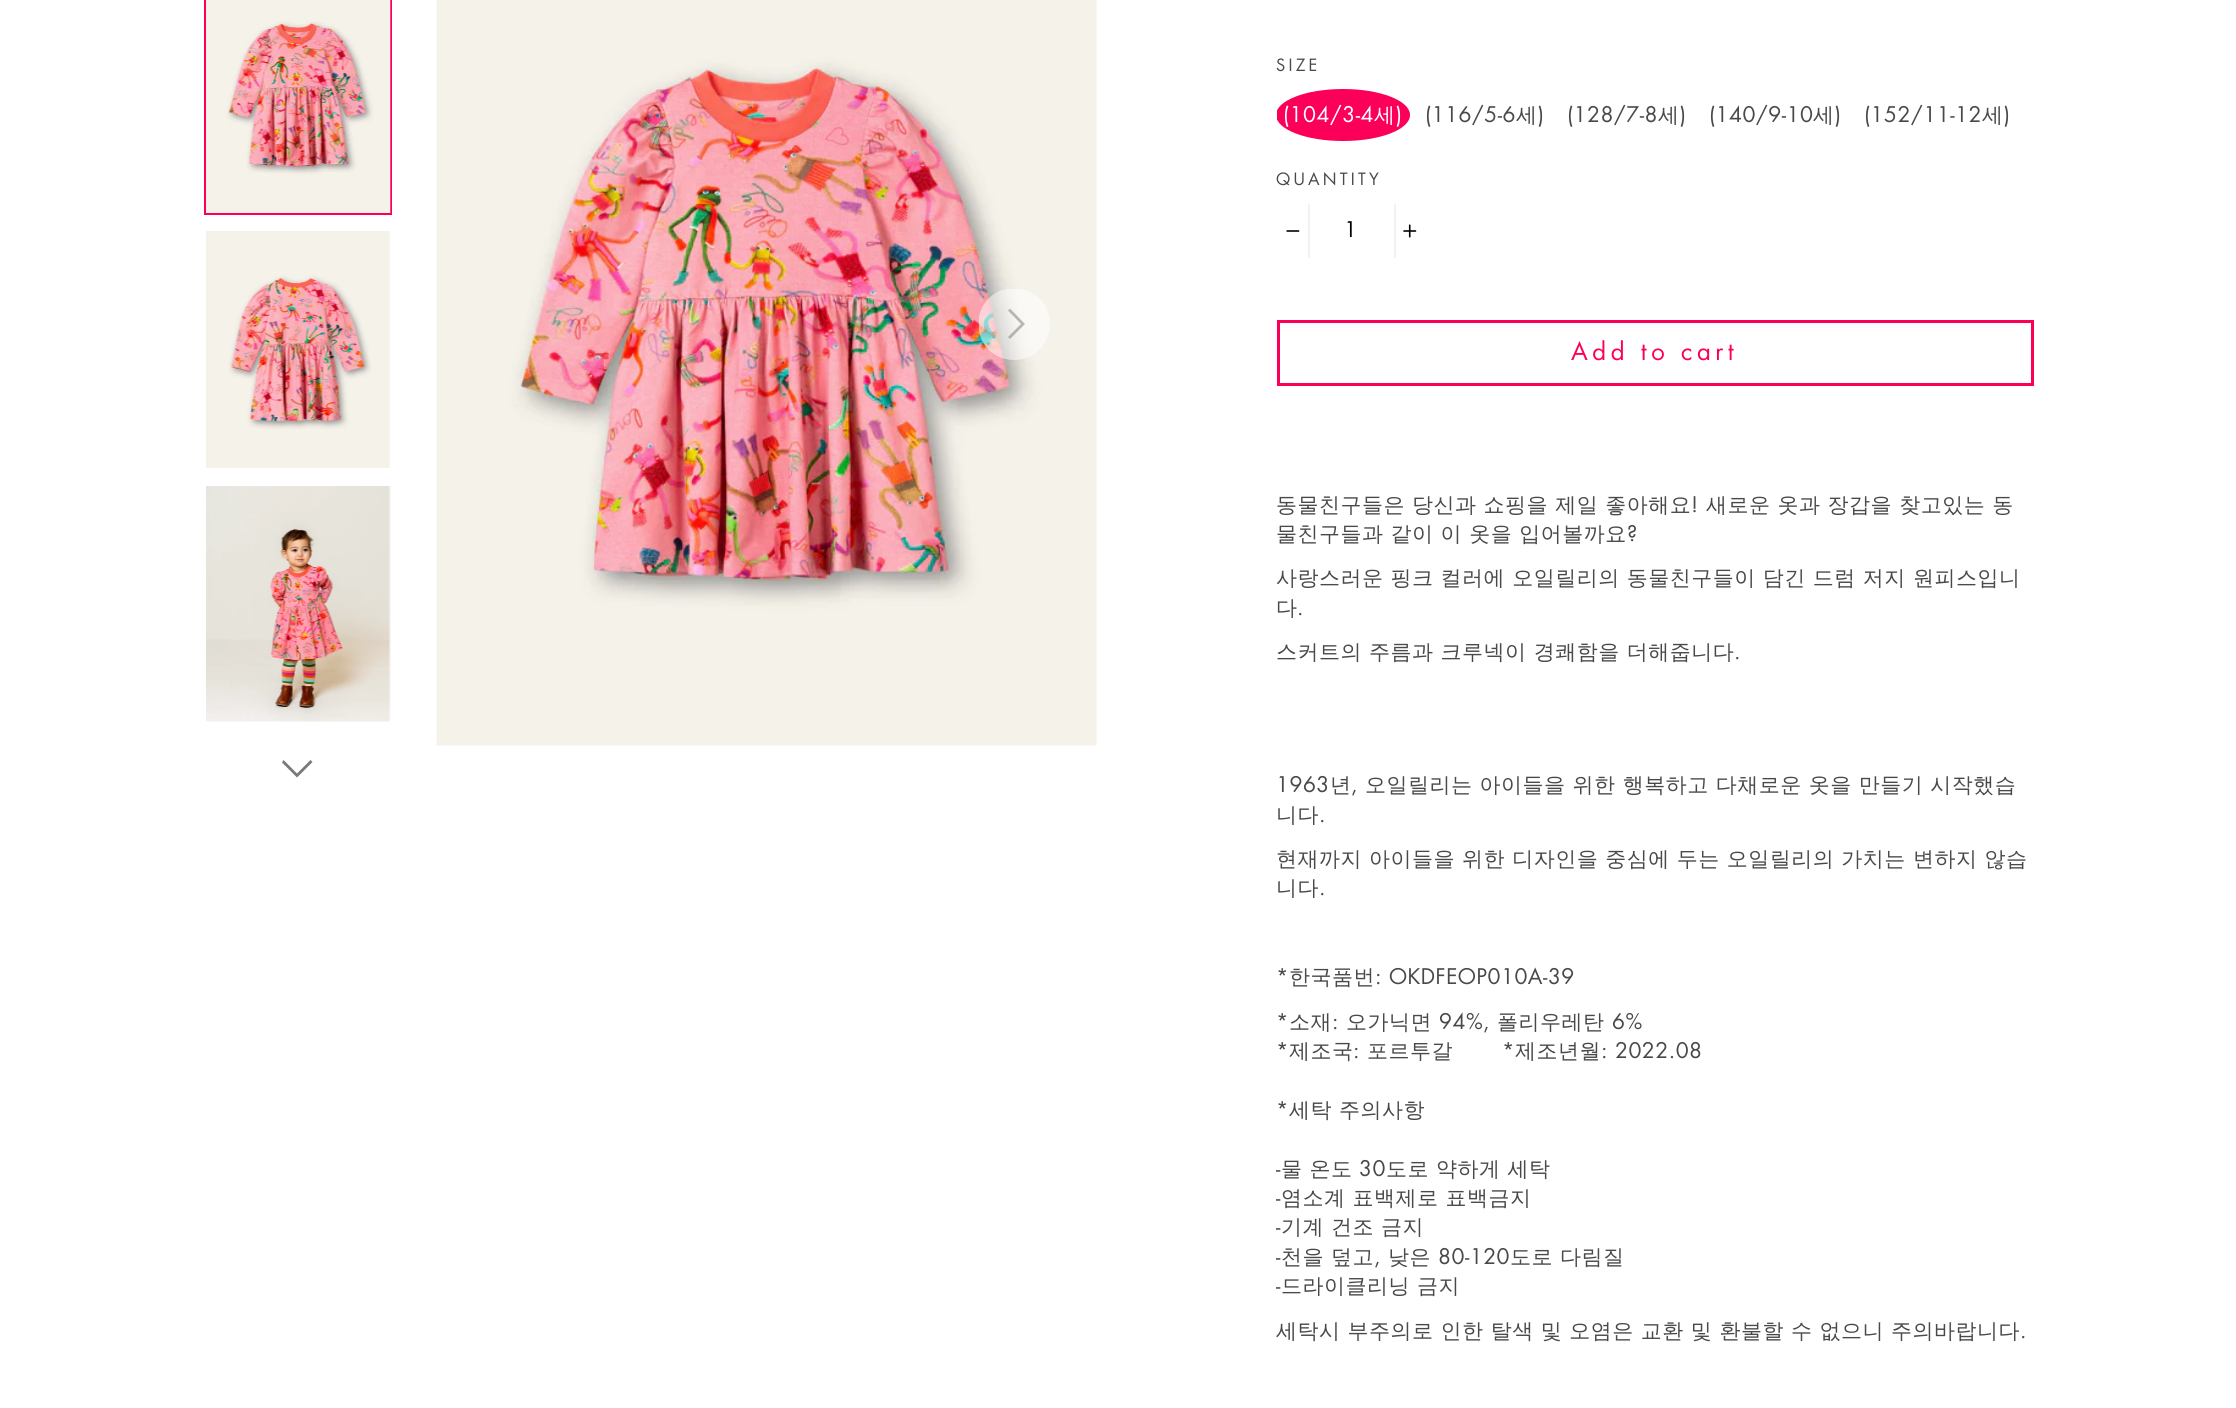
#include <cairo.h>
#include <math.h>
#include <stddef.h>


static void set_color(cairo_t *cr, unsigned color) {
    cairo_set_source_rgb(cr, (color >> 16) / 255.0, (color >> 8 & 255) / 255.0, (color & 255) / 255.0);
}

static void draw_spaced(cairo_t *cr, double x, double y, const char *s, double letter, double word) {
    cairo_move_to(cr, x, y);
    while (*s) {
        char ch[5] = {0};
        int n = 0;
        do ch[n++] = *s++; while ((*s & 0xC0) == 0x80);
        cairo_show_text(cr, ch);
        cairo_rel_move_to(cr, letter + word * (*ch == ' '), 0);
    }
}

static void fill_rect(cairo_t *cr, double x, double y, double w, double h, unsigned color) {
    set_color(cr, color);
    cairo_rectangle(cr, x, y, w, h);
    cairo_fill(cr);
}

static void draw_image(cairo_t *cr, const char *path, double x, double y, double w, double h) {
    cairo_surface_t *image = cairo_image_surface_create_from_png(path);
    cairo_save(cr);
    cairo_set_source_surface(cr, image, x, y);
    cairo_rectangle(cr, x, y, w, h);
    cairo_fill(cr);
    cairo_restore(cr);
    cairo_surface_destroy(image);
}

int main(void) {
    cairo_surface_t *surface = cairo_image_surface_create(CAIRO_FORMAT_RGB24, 2236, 1408);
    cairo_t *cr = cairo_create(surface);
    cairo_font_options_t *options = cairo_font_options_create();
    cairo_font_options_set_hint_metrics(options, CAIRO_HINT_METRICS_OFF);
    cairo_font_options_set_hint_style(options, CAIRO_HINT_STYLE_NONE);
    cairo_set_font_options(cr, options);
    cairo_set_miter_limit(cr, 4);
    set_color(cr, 0xFFFFFF);
    cairo_paint(cr);
    cairo_rectangle(cr, 205, -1, 186, 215);
    set_color(cr, 0xFC0059);
    cairo_stroke(cr);
    draw_image(cr, "assets/img1.png", 206, 0, 185, 213);
    draw_image(cr, "assets/img2.png", 206, 231, 185, 237);
    draw_image(cr, "assets/img3.png", 206, 486, 185, 236);
    set_color(cr, 0x7B7875);
    cairo_new_path(cr);
    cairo_move_to(cr, 282, 762.5);
    cairo_line_to(cr, 283.5, 760);
    cairo_line_to(cr, 297, 773.5);
    cairo_line_to(cr, 310.5, 760);
    cairo_line_to(cr, 312.5, 762);
    cairo_line_to(cr, 297, 777.5);
    cairo_close_path(cr);
    cairo_fill(cr);
    draw_image(cr, "assets/img4.png", 436, 0, 661, 746);
    cairo_set_source_rgba(cr, 1, 1, 1, 0.5);
    cairo_new_path(cr);
    cairo_move_to(cr, 1021, 289);
    cairo_curve_to(cr, 1038, 292, 1050, 306, 1050, 324);
    cairo_curve_to(cr, 1050, 344, 1034, 360, 1014, 360);
    cairo_curve_to(cr, 997, 360, 982, 348, 979, 331);
    cairo_line_to(cr, 979, 317);
    cairo_curve_to(cr, 982, 302, 993, 291, 1007, 289);
    cairo_close_path(cr);
    cairo_fill(cr);
    cairo_set_source_rgba(cr, 0.482, 0.471, 0.459, 0.5);
    cairo_new_path(cr);
    cairo_move_to(cr, 1010, 339);
    cairo_line_to(cr, 1008, 337);
    cairo_line_to(cr, 1021, 324);
    cairo_line_to(cr, 1008, 310.5);
    cairo_line_to(cr, 1010, 308.5);
    cairo_line_to(cr, 1025, 324);
    cairo_close_path(cr);
    cairo_fill(cr);
    cairo_select_font_face(cr, "Futura", CAIRO_FONT_SLANT_NORMAL, CAIRO_FONT_WEIGHT_NORMAL);
    cairo_set_font_size(cr, 16.5);
    set_color(cr, 0x494949);
    draw_spaced(cr, 1276, 71, "SIZE", 3.25, 0);
    cairo_save(cr);
    cairo_rectangle(cr, 1277, 89, 757, 60);
    cairo_clip(cr);
    set_color(cr, 0xFC0059);
    cairo_new_path(cr);
    cairo_move_to(cr, 1343, 89);
    cairo_curve_to(cr, 1380, 89, 1410, 100.5, 1410, 115);
    cairo_curve_to(cr, 1410, 129.5, 1380, 141, 1343, 141);
    cairo_curve_to(cr, 1306, 141, 1276, 129.5, 1276, 115);
    cairo_curve_to(cr, 1276, 100.5, 1306, 89, 1343, 89);
    cairo_close_path(cr);
    cairo_fill(cr);
    cairo_restore(cr);
    cairo_set_font_size(cr, 21);
    set_color(cr, 0xFFFFFF);
    draw_spaced(cr, 1283, 122, "(104/3-4", 0.5, 0);
    cairo_select_font_face(cr, "WenQuanYi Zen Hei Medium", CAIRO_FONT_SLANT_NORMAL, CAIRO_FONT_WEIGHT_NORMAL);
    draw_spaced(cr, 1374, 122, "세", 0.5, 0);
    cairo_select_font_face(cr, "Futura", CAIRO_FONT_SLANT_NORMAL, CAIRO_FONT_WEIGHT_NORMAL);
    draw_spaced(cr, 1396, 122, ")", 0.5, 0);
    set_color(cr, 0x494949);
    draw_spaced(cr, 1425, 122, "(116/5-6", 0.5, 0);
    cairo_select_font_face(cr, "WenQuanYi Zen Hei Medium", CAIRO_FONT_SLANT_NORMAL, CAIRO_FONT_WEIGHT_NORMAL);
    draw_spaced(cr, 1516, 122, "세", 0.5, 0);
    cairo_select_font_face(cr, "Futura", CAIRO_FONT_SLANT_NORMAL, CAIRO_FONT_WEIGHT_NORMAL);
    draw_spaced(cr, 1538, 122, ")", 0.5, 0);
    draw_spaced(cr, 1567, 122, "(128/7-8", 0.5, 0);
    cairo_select_font_face(cr, "WenQuanYi Zen Hei Medium", CAIRO_FONT_SLANT_NORMAL, CAIRO_FONT_WEIGHT_NORMAL);
    draw_spaced(cr, 1658, 122, "세", 0.5, 0);
    cairo_select_font_face(cr, "Futura", CAIRO_FONT_SLANT_NORMAL, CAIRO_FONT_WEIGHT_NORMAL);
    draw_spaced(cr, 1680, 122, ")", 0.5, 0);
    draw_spaced(cr, 1709, 122, "(140/9-10", 0.5, 0);
    cairo_select_font_face(cr, "WenQuanYi Zen Hei Medium", CAIRO_FONT_SLANT_NORMAL, CAIRO_FONT_WEIGHT_NORMAL);
    draw_spaced(cr, 1813, 122, "세", 0.5, 0);
    cairo_select_font_face(cr, "Futura", CAIRO_FONT_SLANT_NORMAL, CAIRO_FONT_WEIGHT_NORMAL);
    draw_spaced(cr, 1835, 122, ")", 0.5, 0);
    draw_spaced(cr, 1864, 122, "(152/11-12", 0.5, 0);
    cairo_select_font_face(cr, "WenQuanYi Zen Hei Medium", CAIRO_FONT_SLANT_NORMAL, CAIRO_FONT_WEIGHT_NORMAL);
    draw_spaced(cr, 1982, 122, "세", 0.5, 0);
    cairo_select_font_face(cr, "Futura", CAIRO_FONT_SLANT_NORMAL, CAIRO_FONT_WEIGHT_NORMAL);
    draw_spaced(cr, 2004, 122, ")", 0.5, 0);
    cairo_set_font_size(cr, 16.5);
    draw_spaced(cr, 1276, 185, "QUANTITY", 3.25, 0);
    fill_rect(cr, 1308, 204, 2, 54, 0xF2F2F2);
    draw_image(cr, "assets/img5.png", 1286, 230, 14, 2);
    cairo_set_font_size(cr, 21);
    set_color(cr, 0x000000);
    draw_spaced(cr, 1344, 237, "1", 0.5, 0);
    fill_rect(cr, 1394, 204, 2, 54, 0xF2F2F2);
    draw_image(cr, "assets/img6.png", 1403, 224, 14, 14);
    cairo_rectangle(cr, 1278.5, 321.5, 754, 63);
    set_color(cr, 0xFC0059);
    cairo_set_line_width(cr, 3);
    cairo_stroke(cr);
    cairo_set_font_size(cr, 24);
    draw_spaced(cr, 1571, 360, "Add to cart", 4.5, 0);
    cairo_select_font_face(cr, "WenQuanYi Zen Hei Medium", CAIRO_FONT_SLANT_NORMAL, CAIRO_FONT_WEIGHT_NORMAL);
    cairo_set_font_size(cr, 21);
    set_color(cr, 0x494949);
    draw_spaced(cr, 1276, 512, "동물친구들은 당신과 쇼핑을 제일 좋아해요", 0.5, 0.25);
    cairo_select_font_face(cr, "Futura", CAIRO_FONT_SLANT_NORMAL, CAIRO_FONT_WEIGHT_NORMAL);
    draw_spaced(cr, 1691, 512, "!", 0.5, 0);
    cairo_select_font_face(cr, "WenQuanYi Zen Hei Medium", CAIRO_FONT_SLANT_NORMAL, CAIRO_FONT_WEIGHT_NORMAL);
    draw_spaced(cr, 1706, 512, "새로운 옷과 장갑을 찾고있는 동", 0.5, 0.25);
    draw_spaced(cr, 1276, 541, "물친구들과 같이 이 옷을 입어볼까요", 0.5, 0.25);
    cairo_select_font_face(cr, "Futura", CAIRO_FONT_SLANT_NORMAL, CAIRO_FONT_WEIGHT_NORMAL);
    draw_spaced(cr, 1627, 541, "?", 0.5, 0);
    cairo_select_font_face(cr, "WenQuanYi Zen Hei Medium", CAIRO_FONT_SLANT_NORMAL, CAIRO_FONT_WEIGHT_NORMAL);
    draw_spaced(cr, 1276, 585, "사랑스러운 핑크 컬러에 오일릴리의 동물친구들이 담긴 드럼 저지 원피스입니", 0.5, 0.25);
    draw_spaced(cr, 1276, 615, "다", 0.5, 0);
    cairo_select_font_face(cr, "Futura", CAIRO_FONT_SLANT_NORMAL, CAIRO_FONT_WEIGHT_NORMAL);
    draw_spaced(cr, 1297, 615, ".", 0.5, 0);
    cairo_select_font_face(cr, "WenQuanYi Zen Hei Medium", CAIRO_FONT_SLANT_NORMAL, CAIRO_FONT_WEIGHT_NORMAL);
    draw_spaced(cr, 1276, 659, "스커트의 주름과 크루넥이 경쾌함을 더해줍니다", 0.5, 0.25);
    cairo_select_font_face(cr, "Futura", CAIRO_FONT_SLANT_NORMAL, CAIRO_FONT_WEIGHT_NORMAL);
    draw_spaced(cr, 1734, 659, ".", 0.5, 0);
    draw_spaced(cr, 1276, 792, "1963", 0.5, 0);
    cairo_select_font_face(cr, "WenQuanYi Zen Hei Medium", CAIRO_FONT_SLANT_NORMAL, CAIRO_FONT_WEIGHT_NORMAL);
    draw_spaced(cr, 1330, 792, "년", 0.5, 0);
    cairo_select_font_face(cr, "Futura", CAIRO_FONT_SLANT_NORMAL, CAIRO_FONT_WEIGHT_NORMAL);
    draw_spaced(cr, 1351, 792, ",", 0.5, 0);
    cairo_select_font_face(cr, "WenQuanYi Zen Hei Medium", CAIRO_FONT_SLANT_NORMAL, CAIRO_FONT_WEIGHT_NORMAL);
    draw_spaced(cr, 1365, 792, "오일릴리는 아이들을 위한 행복하고 다채로운 옷을 만들기 시작했습", 0.5, 0.25);
    draw_spaced(cr, 1276, 822, "니다", 0.5, 0);
    cairo_select_font_face(cr, "Futura", CAIRO_FONT_SLANT_NORMAL, CAIRO_FONT_WEIGHT_NORMAL);
    draw_spaced(cr, 1319, 822, ".", 0.5, 0);
    cairo_select_font_face(cr, "WenQuanYi Zen Hei Medium", CAIRO_FONT_SLANT_NORMAL, CAIRO_FONT_WEIGHT_NORMAL);
    draw_spaced(cr, 1276, 866, "현재까지 아이들을 위한 디자인을 중심에 두는 오일릴리의 가치는 변하지 않습", 0.5, 0.25);
    draw_spaced(cr, 1276, 895, "니다", 0.5, 0);
    cairo_select_font_face(cr, "Futura", CAIRO_FONT_SLANT_NORMAL, CAIRO_FONT_WEIGHT_NORMAL);
    draw_spaced(cr, 1319, 895, ".", 0.5, 0);
    draw_spaced(cr, 1276, 984, "*", 0.5, 0);
    cairo_select_font_face(cr, "WenQuanYi Zen Hei Medium", CAIRO_FONT_SLANT_NORMAL, CAIRO_FONT_WEIGHT_NORMAL);
    draw_spaced(cr, 1289, 984, "한국품번", 0.5, 0);
    cairo_select_font_face(cr, "Futura", CAIRO_FONT_SLANT_NORMAL, CAIRO_FONT_WEIGHT_NORMAL);
    draw_spaced(cr, 1375, 984, ": OKDFEOP010A-39", 0.5, 0);
    draw_spaced(cr, 1276, 1029, "*", 0.5, 0);
    cairo_select_font_face(cr, "WenQuanYi Zen Hei Medium", CAIRO_FONT_SLANT_NORMAL, CAIRO_FONT_WEIGHT_NORMAL);
    draw_spaced(cr, 1289, 1029, "소재", 0.5, 0);
    cairo_select_font_face(cr, "Futura", CAIRO_FONT_SLANT_NORMAL, CAIRO_FONT_WEIGHT_NORMAL);
    draw_spaced(cr, 1332, 1029, ":", 0.5, 0);
    cairo_select_font_face(cr, "WenQuanYi Zen Hei Medium", CAIRO_FONT_SLANT_NORMAL, CAIRO_FONT_WEIGHT_NORMAL);
    draw_spaced(cr, 1346, 1029, "오가닉면", 0.5, 0);
    cairo_select_font_face(cr, "Futura", CAIRO_FONT_SLANT_NORMAL, CAIRO_FONT_WEIGHT_NORMAL);
    draw_spaced(cr, 1439, 1029, "94%,", 0.5, 0);
    cairo_select_font_face(cr, "WenQuanYi Zen Hei Medium", CAIRO_FONT_SLANT_NORMAL, CAIRO_FONT_WEIGHT_NORMAL);
    draw_spaced(cr, 1497, 1029, "폴리우레탄", 0.5, 0);
    cairo_select_font_face(cr, "Futura", CAIRO_FONT_SLANT_NORMAL, CAIRO_FONT_WEIGHT_NORMAL);
    draw_spaced(cr, 1612, 1029, "6%", 0.5, 0);
    draw_spaced(cr, 1276, 1058, "*", 0.5, 0);
    cairo_select_font_face(cr, "WenQuanYi Zen Hei Medium", CAIRO_FONT_SLANT_NORMAL, CAIRO_FONT_WEIGHT_NORMAL);
    draw_spaced(cr, 1289, 1058, "제조국", 0.5, 0);
    cairo_select_font_face(cr, "Futura", CAIRO_FONT_SLANT_NORMAL, CAIRO_FONT_WEIGHT_NORMAL);
    draw_spaced(cr, 1353, 1058, ":", 0.5, 0);
    cairo_select_font_face(cr, "WenQuanYi Zen Hei Medium", CAIRO_FONT_SLANT_NORMAL, CAIRO_FONT_WEIGHT_NORMAL);
    draw_spaced(cr, 1367, 1058, "포르투갈", 0.5, 0);
    cairo_select_font_face(cr, "Futura", CAIRO_FONT_SLANT_NORMAL, CAIRO_FONT_WEIGHT_NORMAL);
    draw_spaced(cr, 1502, 1058, "*", 0.5, 0);
    cairo_select_font_face(cr, "WenQuanYi Zen Hei Medium", CAIRO_FONT_SLANT_NORMAL, CAIRO_FONT_WEIGHT_NORMAL);
    draw_spaced(cr, 1515, 1058, "제조년월", 0.5, 0);
    cairo_select_font_face(cr, "Futura", CAIRO_FONT_SLANT_NORMAL, CAIRO_FONT_WEIGHT_NORMAL);
    draw_spaced(cr, 1601, 1058, ": 2022.08", 0.5, 0);
    draw_spaced(cr, 1276, 1117, "*", 0.5, 0);
    cairo_select_font_face(cr, "WenQuanYi Zen Hei Medium", CAIRO_FONT_SLANT_NORMAL, CAIRO_FONT_WEIGHT_NORMAL);
    draw_spaced(cr, 1289, 1117, "세탁 주의사항", 0.5, 0.25);
    cairo_select_font_face(cr, "Futura", CAIRO_FONT_SLANT_NORMAL, CAIRO_FONT_WEIGHT_NORMAL);
    draw_spaced(cr, 1276, 1176, "-", 0.5, 0);
    cairo_select_font_face(cr, "WenQuanYi Zen Hei Medium", CAIRO_FONT_SLANT_NORMAL, CAIRO_FONT_WEIGHT_NORMAL);
    draw_spaced(cr, 1281, 1176, "물 온도", 0.5, 0.25);
    cairo_select_font_face(cr, "Futura", CAIRO_FONT_SLANT_NORMAL, CAIRO_FONT_WEIGHT_NORMAL);
    draw_spaced(cr, 1359, 1176, "30", 0.5, 0);
    cairo_select_font_face(cr, "WenQuanYi Zen Hei Medium", CAIRO_FONT_SLANT_NORMAL, CAIRO_FONT_WEIGHT_NORMAL);
    draw_spaced(cr, 1386, 1176, "도로 약하게 세탁", 0.5, 0.25);
    cairo_select_font_face(cr, "Futura", CAIRO_FONT_SLANT_NORMAL, CAIRO_FONT_WEIGHT_NORMAL);
    draw_spaced(cr, 1276, 1205, "-", 0.5, 0);
    cairo_select_font_face(cr, "WenQuanYi Zen Hei Medium", CAIRO_FONT_SLANT_NORMAL, CAIRO_FONT_WEIGHT_NORMAL);
    draw_spaced(cr, 1281, 1205, "염소계 표백제로 표백금지", 0.5, 0.25);
    cairo_select_font_face(cr, "Futura", CAIRO_FONT_SLANT_NORMAL, CAIRO_FONT_WEIGHT_NORMAL);
    draw_spaced(cr, 1276, 1234, "-", 0.5, 0);
    cairo_select_font_face(cr, "WenQuanYi Zen Hei Medium", CAIRO_FONT_SLANT_NORMAL, CAIRO_FONT_WEIGHT_NORMAL);
    draw_spaced(cr, 1281, 1234, "기계 건조 금지", 0.5, 0.25);
    cairo_select_font_face(cr, "Futura", CAIRO_FONT_SLANT_NORMAL, CAIRO_FONT_WEIGHT_NORMAL);
    draw_spaced(cr, 1276, 1264, "-", 0.5, 0);
    cairo_select_font_face(cr, "WenQuanYi Zen Hei Medium", CAIRO_FONT_SLANT_NORMAL, CAIRO_FONT_WEIGHT_NORMAL);
    draw_spaced(cr, 1281, 1264, "천을 덮고", 0.5, 0.25);
    draw_spaced(cr, 1388, 1264, "낮은", 0.5, 0);
    cairo_select_font_face(cr, "Futura", CAIRO_FONT_SLANT_NORMAL, CAIRO_FONT_WEIGHT_NORMAL);
    draw_spaced(cr, 1438, 1264, "80-120", 0.5, 0);
    cairo_select_font_face(cr, "WenQuanYi Zen Hei Medium", CAIRO_FONT_SLANT_NORMAL, CAIRO_FONT_WEIGHT_NORMAL);
    draw_spaced(cr, 1510, 1264, "도로 다림질", 0.5, 0.25);
    cairo_select_font_face(cr, "Futura", CAIRO_FONT_SLANT_NORMAL, CAIRO_FONT_WEIGHT_NORMAL);
    draw_spaced(cr, 1374, 1264, ",", 0.5, 0);
    draw_spaced(cr, 1276, 1293, "-", 0.5, 0);
    cairo_select_font_face(cr, "WenQuanYi Zen Hei Medium", CAIRO_FONT_SLANT_NORMAL, CAIRO_FONT_WEIGHT_NORMAL);
    draw_spaced(cr, 1281, 1293, "드라이클리닝 금지", 0.5, 0.25);
    draw_spaced(cr, 1276, 1338, "세탁시 부주의로 인한 탈색 및 오염은 교환 및 환불할 수 없으니 주의바랍니다", 0.5, 0.25);
    cairo_select_font_face(cr, "Futura", CAIRO_FONT_SLANT_NORMAL, CAIRO_FONT_WEIGHT_NORMAL);
    draw_spaced(cr, 2020, 1338, ".", 0.5, 0);
    cairo_surface_write_to_png(surface, "output.png");
    cairo_font_options_destroy(options);
    cairo_destroy(cr);
    cairo_surface_destroy(surface);
    return 0;
}
